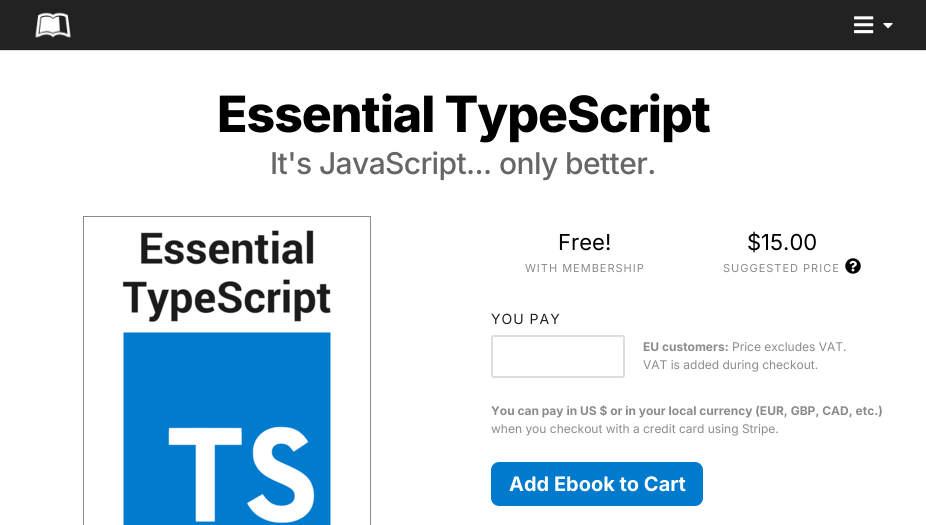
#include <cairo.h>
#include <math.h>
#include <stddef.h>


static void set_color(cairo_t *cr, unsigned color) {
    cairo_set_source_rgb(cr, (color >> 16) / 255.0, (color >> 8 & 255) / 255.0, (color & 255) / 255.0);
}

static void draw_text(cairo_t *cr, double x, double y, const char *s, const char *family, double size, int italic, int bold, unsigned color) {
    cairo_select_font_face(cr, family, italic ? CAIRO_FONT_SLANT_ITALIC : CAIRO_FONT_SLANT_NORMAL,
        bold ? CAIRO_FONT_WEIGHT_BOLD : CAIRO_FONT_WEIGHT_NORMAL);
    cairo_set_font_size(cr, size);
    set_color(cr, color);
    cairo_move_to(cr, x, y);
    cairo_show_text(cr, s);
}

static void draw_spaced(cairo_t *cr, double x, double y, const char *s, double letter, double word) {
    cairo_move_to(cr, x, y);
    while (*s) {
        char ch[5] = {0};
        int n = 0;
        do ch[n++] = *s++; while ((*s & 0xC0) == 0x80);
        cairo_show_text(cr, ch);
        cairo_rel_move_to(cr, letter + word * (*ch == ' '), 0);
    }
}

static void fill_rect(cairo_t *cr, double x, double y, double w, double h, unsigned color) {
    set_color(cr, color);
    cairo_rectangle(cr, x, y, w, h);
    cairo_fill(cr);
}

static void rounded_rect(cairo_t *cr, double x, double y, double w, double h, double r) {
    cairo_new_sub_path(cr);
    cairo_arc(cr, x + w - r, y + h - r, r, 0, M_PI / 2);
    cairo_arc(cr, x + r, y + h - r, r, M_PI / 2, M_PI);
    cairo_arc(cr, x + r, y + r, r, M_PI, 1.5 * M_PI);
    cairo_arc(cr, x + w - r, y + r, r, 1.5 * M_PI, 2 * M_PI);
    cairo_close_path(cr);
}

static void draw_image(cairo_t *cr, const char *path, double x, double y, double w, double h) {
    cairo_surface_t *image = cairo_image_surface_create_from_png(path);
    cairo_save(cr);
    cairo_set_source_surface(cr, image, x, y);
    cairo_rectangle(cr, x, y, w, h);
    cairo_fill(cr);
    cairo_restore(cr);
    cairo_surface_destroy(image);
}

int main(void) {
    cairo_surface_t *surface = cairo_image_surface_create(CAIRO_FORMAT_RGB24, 926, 525);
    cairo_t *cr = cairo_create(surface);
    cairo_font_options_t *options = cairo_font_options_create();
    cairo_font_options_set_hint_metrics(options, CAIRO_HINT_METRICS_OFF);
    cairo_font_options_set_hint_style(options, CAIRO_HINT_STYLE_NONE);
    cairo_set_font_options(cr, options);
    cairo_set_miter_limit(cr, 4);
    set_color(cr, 0x222222);
    cairo_paint(cr);
    draw_image(cr, "assets/img1.png", 35, 12, 36, 26);
    draw_image(cr, "assets/img2.png", 854, 16, 20, 18);
    draw_image(cr, "assets/img3.png", 883, 23, 10, 6);
    fill_rect(cr, 0, 51, 926, 474, 0xFFFFFF);
    fill_rect(cr, 0, 50, 926, 1, 0xDEDEDE);
    cairo_select_font_face(cr, "Inter ExtraBold", CAIRO_FONT_SLANT_NORMAL, CAIRO_FONT_WEIGHT_NORMAL);
    cairo_set_font_size(cr, 50);
    set_color(cr, 0x000000);
    draw_spaced(cr, 217, 132, "Essential TypeScript", -1, 0);
    cairo_select_font_face(cr, "Inter Medium", CAIRO_FONT_SLANT_NORMAL, CAIRO_FONT_WEIGHT_NORMAL);
    cairo_set_font_size(cr, 30);
    set_color(cr, 0x666666);
    draw_spaced(cr, 270, 174, "It's JavaScript... only better.", -0.6, 0);
    cairo_rectangle(cr, 83.5, 216.5, 287, 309);
    set_color(cr, 0x8B8B8B);
    cairo_set_line_width(cr, 1);
    cairo_stroke(cr);
    draw_image(cr, "assets/img4.png", 122, 230, 209, 295);
    draw_text(cr, 558, 250, "Free!", "Inter", 22, 0, 0, 0x000000);
    cairo_set_font_size(cr, 11);
    set_color(cr, 0x8B8B8B);
    draw_spaced(cr, 525, 272, "WITH MEMBERSHIP", 1, 0);
    draw_text(cr, 747, 250, "$15.00", "Inter", 22, 0, 0, 0x000000);
    cairo_set_font_size(cr, 11);
    set_color(cr, 0x8B8B8B);
    draw_spaced(cr, 723, 272, "SUGGESTED PRICE", 1, 0);
    draw_image(cr, "assets/img5.png", 845, 258, 16, 16);
    cairo_set_font_size(cr, 14);
    set_color(cr, 0x222222);
    draw_spaced(cr, 491, 324, "YOU PAY", 1, 0);
    rounded_rect(cr, 492, 336, 132, 41, 1.5);
    set_color(cr, 0xDEDEDE);
    cairo_set_line_width(cr, 2);
    cairo_stroke(cr);
    draw_text(cr, 643, 351, "EU customers:", "Inter", 12, 0, 1, 0x8B8B8B);
    draw_text(cr, 732, 351, "Price excludes VAT.", "Inter", 12, 0, 0, 0x8B8B8B);
    draw_text(cr, 643, 369, "VAT is added during checkout.", "Inter", 12, 0, 0, 0x8B8B8B);
    draw_text(cr, 491, 415, "You can pay in US $ or in your local currency (EUR, GBP, CAD, etc.)", "Inter", 12, 0, 1, 0x8B8B8B);
    draw_text(cr, 491, 433, "when you checkout with a credit card using Stripe.", "Inter", 12, 0, 0, 0x8B8B8B);
    set_color(cr, 0x007ACD);
    rounded_rect(cr, 491, 462, 212, 44, 8);
    cairo_fill(cr);
    draw_text(cr, 509, 491, "Add Ebook to Cart", "Inter", 20, 0, 1, 0xFFFFFF);
    cairo_surface_write_to_png(surface, "output.png");
    cairo_font_options_destroy(options);
    cairo_destroy(cr);
    cairo_surface_destroy(surface);
    return 0;
}
